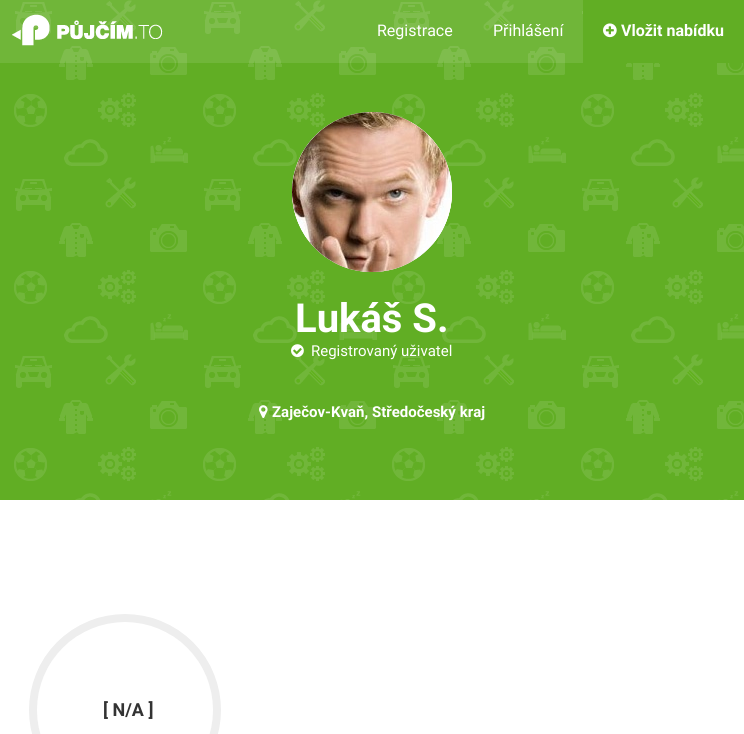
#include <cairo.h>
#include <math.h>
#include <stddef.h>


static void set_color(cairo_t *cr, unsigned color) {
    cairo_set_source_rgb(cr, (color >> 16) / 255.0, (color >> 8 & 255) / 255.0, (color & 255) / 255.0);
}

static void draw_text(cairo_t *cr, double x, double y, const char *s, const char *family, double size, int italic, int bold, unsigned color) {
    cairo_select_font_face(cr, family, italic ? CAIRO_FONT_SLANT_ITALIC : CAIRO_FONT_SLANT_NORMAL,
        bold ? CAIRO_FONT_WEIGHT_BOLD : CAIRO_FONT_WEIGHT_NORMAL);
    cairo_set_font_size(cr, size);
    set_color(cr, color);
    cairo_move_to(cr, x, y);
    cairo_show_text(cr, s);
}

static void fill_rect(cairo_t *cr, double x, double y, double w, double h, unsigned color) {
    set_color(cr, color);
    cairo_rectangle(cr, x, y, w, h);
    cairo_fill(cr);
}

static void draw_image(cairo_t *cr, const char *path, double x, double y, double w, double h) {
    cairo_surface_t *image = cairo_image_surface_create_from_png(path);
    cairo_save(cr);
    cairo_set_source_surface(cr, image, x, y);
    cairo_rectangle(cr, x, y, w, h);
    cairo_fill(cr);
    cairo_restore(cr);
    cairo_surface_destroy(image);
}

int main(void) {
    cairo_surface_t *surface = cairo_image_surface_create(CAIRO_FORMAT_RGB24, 744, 734);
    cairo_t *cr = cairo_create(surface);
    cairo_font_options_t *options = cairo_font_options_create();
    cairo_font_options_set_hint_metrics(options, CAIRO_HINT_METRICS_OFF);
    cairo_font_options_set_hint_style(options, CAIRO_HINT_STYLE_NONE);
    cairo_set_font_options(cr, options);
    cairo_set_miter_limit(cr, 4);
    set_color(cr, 0x61AE24);
    cairo_paint(cr);
    draw_image(cr, "assets/img3.png", 14, 0, 730, 500);
    cairo_set_source_rgba(cr, 1, 1, 1, 0.1);
    cairo_rectangle(cr, 0, 0, 583, 63);
    cairo_fill(cr);
    draw_image(cr, "assets/img1.png", 12, 14, 151, 32);
    draw_text(cr, 377, 36, "Registrace", "Roboto", 16, 0, 0, 0xFFFFFF);
    draw_text(cr, 493, 36, "Přihlášení", "Roboto", 16, 0, 0, 0xFFFFFF);
    fill_rect(cr, 583, 0, 161, 63, 0x61AE24);
    draw_image(cr, "assets/img2.png", 603, 23, 14, 15);
    draw_text(cr, 621, 36, "Vložit nabídku", "Roboto", 16, 0, 1, 0xFFFFFF);
    cairo_new_path(cr);
    cairo_arc(cr, 372, 192, 80, 0, 2 * M_PI);
    cairo_fill(cr);
    draw_image(cr, "assets/img4.png", 292, 122, 160, 150);
    draw_image(cr, "assets/img5.png", 292, 112, 160, 160);
    draw_text(cr, 295, 332, "Lukáš S.", "Roboto", 40, 0, 1, 0xFFFFFF);
    draw_image(cr, "assets/img6.png", 291, 344, 13, 14);
    draw_text(cr, 311, 356, "Registrovaný uživatel", "Roboto", 15, 0, 0, 0xFFFFFF);
    draw_image(cr, "assets/img7.png", 259, 405, 9, 13);
    draw_text(cr, 272, 417, "Zaječov-Kvaň, Středočeský kraj", "Roboto", 15, 0, 1, 0xFFFFFF);
    fill_rect(cr, 0, 500, 744, 234, 0xFFFFFF);
    draw_image(cr, "assets/img8.png", 29, 614, 192, 120);
    draw_text(cr, 103, 716, "[ N/A ]", "Roboto", 18, 0, 1, 0x333333);
    cairo_surface_write_to_png(surface, "output.png");
    cairo_font_options_destroy(options);
    cairo_destroy(cr);
    cairo_surface_destroy(surface);
    return 0;
}
